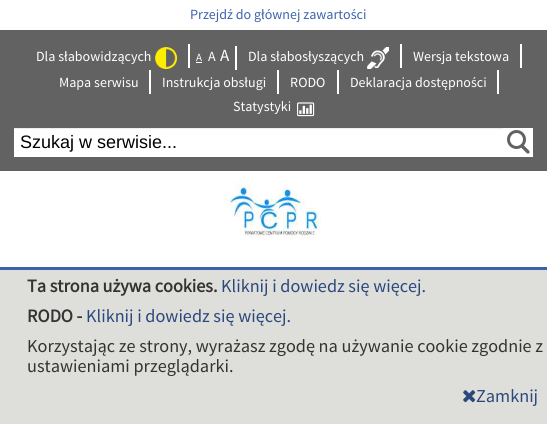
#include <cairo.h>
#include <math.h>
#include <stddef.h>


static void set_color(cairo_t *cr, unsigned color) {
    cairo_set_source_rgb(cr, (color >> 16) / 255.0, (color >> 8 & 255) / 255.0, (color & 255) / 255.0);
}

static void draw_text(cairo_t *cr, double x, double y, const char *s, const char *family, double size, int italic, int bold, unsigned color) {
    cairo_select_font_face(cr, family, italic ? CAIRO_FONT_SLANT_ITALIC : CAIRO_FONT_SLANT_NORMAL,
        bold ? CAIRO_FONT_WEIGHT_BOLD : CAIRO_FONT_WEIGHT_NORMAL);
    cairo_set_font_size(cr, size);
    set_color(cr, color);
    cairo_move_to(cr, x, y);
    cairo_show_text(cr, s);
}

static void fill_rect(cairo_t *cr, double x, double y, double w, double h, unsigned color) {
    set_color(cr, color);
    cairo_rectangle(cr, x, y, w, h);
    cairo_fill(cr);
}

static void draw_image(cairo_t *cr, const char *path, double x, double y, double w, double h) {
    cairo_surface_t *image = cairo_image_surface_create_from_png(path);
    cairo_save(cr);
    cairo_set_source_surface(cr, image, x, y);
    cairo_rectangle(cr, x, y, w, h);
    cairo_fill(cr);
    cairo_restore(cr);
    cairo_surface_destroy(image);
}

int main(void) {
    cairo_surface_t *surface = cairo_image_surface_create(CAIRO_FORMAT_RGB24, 547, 424);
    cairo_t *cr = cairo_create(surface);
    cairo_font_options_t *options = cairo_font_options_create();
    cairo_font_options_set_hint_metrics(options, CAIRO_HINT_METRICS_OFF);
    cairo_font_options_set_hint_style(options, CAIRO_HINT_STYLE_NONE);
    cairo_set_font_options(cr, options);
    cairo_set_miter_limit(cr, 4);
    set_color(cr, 0xFFFFFF);
    cairo_paint(cr);
    draw_text(cr, 190, 19, "Przejdź do głównej zawartości", "Source Sans Pro", 14, 0, 0, 0x3B63AC);
    fill_rect(cr, 0, 30, 547, 141, 0x626262);
    fill_rect(cr, 188, 44, 2, 24, 0xFFFFFF);
    draw_text(cr, 36, 61, "Dla słabowidzących", "Source Sans Pro", 14, 0, 0, 0xFFFFFF);
    draw_image(cr, "assets/img1.png", 155, 47, 22, 22);
    fill_rect(cr, 235, 46, 2, 24, 0xFFFFFF);
    draw_text(cr, 196, 61, "A", "Source Sans Pro", 11, 0, 0, 0xFFFFFF);
    fill_rect(cr, 196, 62, 6, 1, 0xFFFFFF);
    draw_text(cr, 208, 61, "A", "Source Sans Pro", 14, 0, 0, 0xFFFFFF);
    draw_text(cr, 220, 61, "A", "Source Sans Pro", 17, 0, 0, 0xFFFFFF);
    fill_rect(cr, 400, 44, 2, 24, 0xFFFFFF);
    draw_text(cr, 248, 61, "Dla słabosłyszących", "Source Sans Pro", 14, 0, 0, 0xFFFFFF);
    draw_image(cr, "assets/img2.png", 367, 47, 22, 22);
    fill_rect(cr, 520, 44, 2, 24, 0xFFFFFF);
    draw_text(cr, 413, 61, "Wersja tekstowa", "Source Sans Pro", 14, 0, 0, 0xFFFFFF);
    fill_rect(cr, 149, 70, 2, 24, 0xFFFFFF);
    draw_text(cr, 59, 87, "Mapa serwisu", "Source Sans Pro", 14, 0, 0, 0xFFFFFF);
    fill_rect(cr, 277, 70, 2, 24, 0xFFFFFF);
    draw_text(cr, 162, 87, "Instrukcja obsługi", "Source Sans Pro", 14, 0, 0, 0xFFFFFF);
    fill_rect(cr, 337, 70, 2, 24, 0xFFFFFF);
    draw_text(cr, 290, 87, "RODO", "Source Sans Pro", 14, 0, 0, 0xFFFFFF);
    fill_rect(cr, 497, 70, 2, 24, 0xFFFFFF);
    draw_text(cr, 350, 87, "Deklaracja dostępności", "Source Sans Pro", 14, 0, 0, 0xFFFFFF);
    draw_text(cr, 233, 111, "Statystyki", "Source Sans Pro", 14, 0, 0, 0xFFFFFF);
    draw_image(cr, "assets/img3.png", 297, 102, 18, 15);
    fill_rect(cr, 14, 129, 489, 28, 0xFFFFFF);
    fill_rect(cr, 14, 128, 491, 1, 0xECECEC);
    draw_text(cr, 20, 148, "Szukaj w serwisie...", "Liberation Sans", 18, 0, 0, 0x000000);
    fill_rect(cr, 503, 128, 30, 29, 0xFFFFFF);
    draw_image(cr, "assets/img4.png", 507, 130, 23, 24);
    draw_image(cr, "assets/img5.png", 226, 181, 95, 58);
    fill_rect(cr, 0, 270, 547, 154, 0xDEDEDA);
    fill_rect(cr, 0, 267, 547, 3, 0x3B63AC);
    draw_text(cr, 27, 292, "Ta strona używa cookies.", "Source Sans Pro", 18.2, 0, 1, 0x333333);
    draw_text(cr, 221, 292, "Kliknij i dowiedz się więcej.", "Source Sans Pro", 18.2, 0, 0, 0x2B487D);
    draw_text(cr, 27, 322, "RODO -", "Source Sans Pro", 18.2, 0, 1, 0x333333);
    draw_text(cr, 86, 322, "Kliknij i dowiedz się więcej.", "Source Sans Pro", 18.2, 0, 0, 0x2B487D);
    draw_text(cr, 27, 352, "Korzystając ze strony, wyrażasz zgodę na używanie cookie zgodnie z", "Source Sans Pro", 18.2, 0, 0, 0x333333);
    draw_text(cr, 27, 372, "ustawieniami przeglądarki.", "Source Sans Pro", 18.2, 0, 0, 0x333333);
    draw_image(cr, "assets/img6.png", 463, 390, 13, 13);
    draw_text(cr, 476, 402, "Zamknij", "Source Sans Pro", 18.2, 0, 0, 0x2B487D);
    cairo_surface_write_to_png(surface, "output.png");
    cairo_font_options_destroy(options);
    cairo_destroy(cr);
    cairo_surface_destroy(surface);
    return 0;
}
